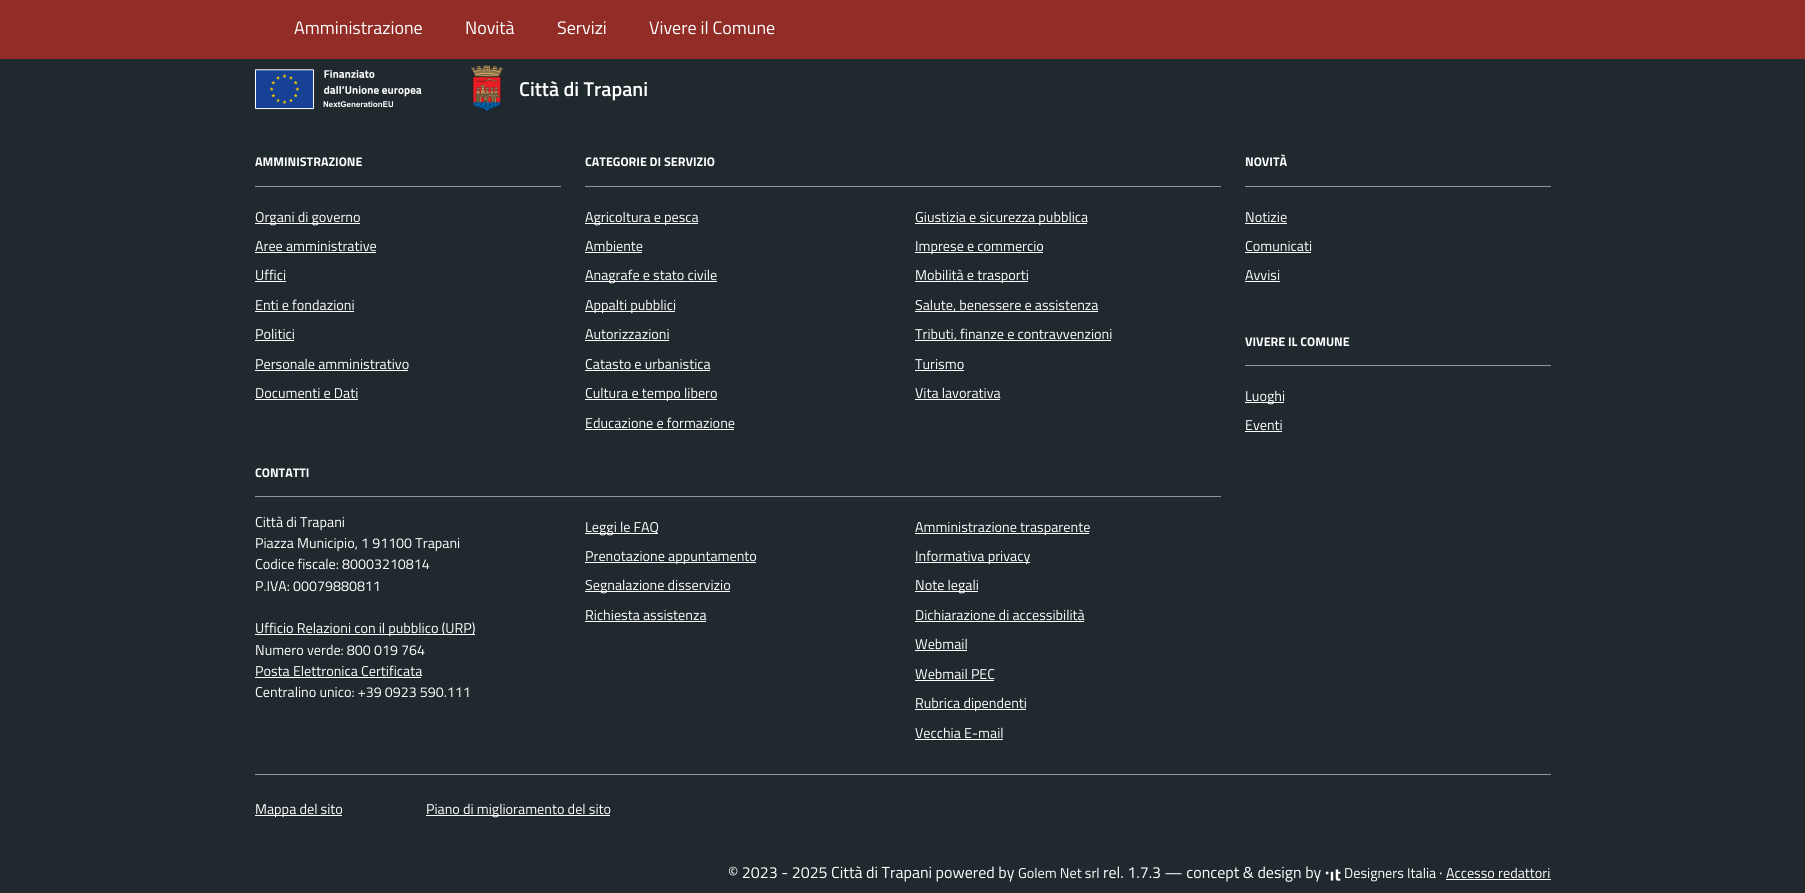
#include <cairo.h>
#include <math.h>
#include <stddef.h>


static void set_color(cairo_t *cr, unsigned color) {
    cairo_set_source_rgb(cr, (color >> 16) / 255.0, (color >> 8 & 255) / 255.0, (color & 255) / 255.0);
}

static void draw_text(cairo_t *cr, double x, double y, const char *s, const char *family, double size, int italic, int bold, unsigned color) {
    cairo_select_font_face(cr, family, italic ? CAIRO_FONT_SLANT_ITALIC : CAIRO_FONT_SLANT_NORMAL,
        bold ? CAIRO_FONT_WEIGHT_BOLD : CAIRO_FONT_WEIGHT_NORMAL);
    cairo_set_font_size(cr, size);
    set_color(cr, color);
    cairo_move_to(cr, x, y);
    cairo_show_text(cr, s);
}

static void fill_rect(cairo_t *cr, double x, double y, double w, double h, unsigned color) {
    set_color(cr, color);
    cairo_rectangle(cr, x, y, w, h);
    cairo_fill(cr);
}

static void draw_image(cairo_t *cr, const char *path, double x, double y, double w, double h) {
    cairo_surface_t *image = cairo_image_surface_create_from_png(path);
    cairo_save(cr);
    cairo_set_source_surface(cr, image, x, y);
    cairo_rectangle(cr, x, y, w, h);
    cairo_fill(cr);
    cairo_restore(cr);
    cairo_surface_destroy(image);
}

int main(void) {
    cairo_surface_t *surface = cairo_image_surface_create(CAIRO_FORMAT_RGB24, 1805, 893);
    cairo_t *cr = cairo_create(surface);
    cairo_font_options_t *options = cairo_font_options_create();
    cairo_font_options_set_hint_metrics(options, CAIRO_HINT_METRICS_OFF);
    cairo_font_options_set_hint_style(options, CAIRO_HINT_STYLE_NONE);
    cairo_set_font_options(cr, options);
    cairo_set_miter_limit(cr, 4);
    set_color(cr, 0x202A2E);
    cairo_paint(cr);
    fill_rect(cr, 0, 0, 1805, 59, 0x912C27);
    draw_text(cr, 294, 34, "Amministrazione", "Titillium Web", 18, 0, 0, 0xFFFFFF);
    draw_text(cr, 465, 34, "Novità", "Titillium Web", 18, 0, 0, 0xFFFFFF);
    draw_text(cr, 557, 34, "Servizi", "Titillium Web", 18, 0, 0, 0xFFFFFF);
    draw_text(cr, 649, 34, "Vivere il Comune", "Titillium Web", 18, 0, 0, 0xFFFFFF);
    draw_image(cr, "assets/img1.png", 255, 69, 167, 41);
    draw_image(cr, "assets/img2.png", 471, 65, 32, 48);
    draw_text(cr, 519, 96, "Città di Trapani", "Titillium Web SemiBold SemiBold", 20, 0, 0, 0xFFFFFF);
    fill_rect(cr, 255, 186, 306, 1, 0x909597);
    draw_text(cr, 255, 166, "AMMINISTRAZIONE", "Titillium Web", 12.5, 0, 1, 0xFFFFFF);
    fill_rect(cr, 255, 223, 105, 1, 0xFFFFFF);
    draw_text(cr, 255, 222, "Organi di governo", "Titillium Web", 14.25, 0, 0, 0xFFFFFF);
    draw_text(cr, 255, 251, "Aree amministrative", "Titillium Web", 14.25, 0, 0, 0xFFFFFF);
    fill_rect(cr, 255, 252, 121, 1, 0xFFFFFF);
    draw_text(cr, 255, 280, "Uffici", "Titillium Web", 14.25, 0, 0, 0xFFFFFF);
    fill_rect(cr, 255, 281, 31, 1, 0xFFFFFF);
    draw_text(cr, 255, 310, "Enti e fondazioni", "Titillium Web", 14.25, 0, 0, 0xFFFFFF);
    fill_rect(cr, 255, 311, 99, 1, 0xFFFFFF);
    draw_text(cr, 255, 339, "Politici", "Titillium Web", 14.25, 0, 0, 0xFFFFFF);
    fill_rect(cr, 255, 340, 39, 1, 0xFFFFFF);
    draw_text(cr, 255, 369, "Personale amministrativo", "Titillium Web", 14.25, 0, 0, 0xFFFFFF);
    fill_rect(cr, 255, 370, 153, 1, 0xFFFFFF);
    draw_text(cr, 255, 398, "Documenti e Dati", "Titillium Web", 14.25, 0, 0, 0xFFFFFF);
    fill_rect(cr, 255, 399, 103, 1, 0xFFFFFF);
    fill_rect(cr, 585, 186, 636, 1, 0x909597);
    draw_text(cr, 585, 166, "CATEGORIE DI SERVIZIO", "Titillium Web", 12.5, 0, 1, 0xFFFFFF);
    fill_rect(cr, 585, 223, 113, 1, 0xFFFFFF);
    draw_text(cr, 585, 222, "Agricoltura e pesca", "Titillium Web", 14.25, 0, 0, 0xFFFFFF);
    draw_text(cr, 585, 251, "Ambiente", "Titillium Web", 14.25, 0, 0, 0xFFFFFF);
    fill_rect(cr, 585, 252, 57, 1, 0xFFFFFF);
    fill_rect(cr, 585, 281, 132, 1, 0xFFFFFF);
    draw_text(cr, 585, 280, "Anagrafe e stato civile", "Titillium Web", 14.25, 0, 0, 0xFFFFFF);
    fill_rect(cr, 585, 311, 90, 1, 0xFFFFFF);
    draw_text(cr, 585, 310, "Appalti pubblici", "Titillium Web", 14.25, 0, 0, 0xFFFFFF);
    draw_text(cr, 585, 339, "Autorizzazioni", "Titillium Web", 14.25, 0, 0, 0xFFFFFF);
    fill_rect(cr, 585, 340, 84, 1, 0xFFFFFF);
    draw_text(cr, 585, 369, "Catasto e urbanistica", "Titillium Web", 14.25, 0, 0, 0xFFFFFF);
    fill_rect(cr, 585, 370, 125, 1, 0xFFFFFF);
    fill_rect(cr, 585, 399, 132, 1, 0xFFFFFF);
    draw_text(cr, 585, 398, "Cultura e tempo libero", "Titillium Web", 14.25, 0, 0, 0xFFFFFF);
    draw_text(cr, 585, 428, "Educazione e formazione", "Titillium Web", 14.25, 0, 0, 0xFFFFFF);
    fill_rect(cr, 585, 429, 149, 1, 0xFFFFFF);
    fill_rect(cr, 915, 223, 172, 1, 0xFFFFFF);
    draw_text(cr, 915, 222, "Giustizia e sicurezza pubblica", "Titillium Web", 14.25, 0, 0, 0xFFFFFF);
    fill_rect(cr, 915, 252, 128, 1, 0xFFFFFF);
    draw_text(cr, 915, 251, "Imprese e commercio", "Titillium Web", 14.25, 0, 0, 0xFFFFFF);
    fill_rect(cr, 915, 281, 113, 1, 0xFFFFFF);
    draw_text(cr, 915, 280, "Mobilità e trasporti", "Titillium Web", 14.25, 0, 0, 0xFFFFFF);
    fill_rect(cr, 915, 311, 183, 1, 0xFFFFFF);
    draw_text(cr, 915, 310, "Salute, benessere e assistenza", "Titillium Web", 14.25, 0, 0, 0xFFFFFF);
    fill_rect(cr, 915, 340, 196, 1, 0xFFFFFF);
    draw_text(cr, 915, 339, "Tributi, finanze e contravvenzioni", "Titillium Web", 14.25, 0, 0, 0xFFFFFF);
    draw_text(cr, 915, 369, "Turismo", "Titillium Web", 14.25, 0, 0, 0xFFFFFF);
    fill_rect(cr, 915, 370, 49, 1, 0xFFFFFF);
    draw_text(cr, 915, 398, "Vita lavorativa", "Titillium Web", 14.25, 0, 0, 0xFFFFFF);
    fill_rect(cr, 915, 399, 85, 1, 0xFFFFFF);
    fill_rect(cr, 1245, 186, 306, 1, 0x909597);
    draw_text(cr, 1245, 166, "NOVITÀ", "Titillium Web", 12.5, 0, 1, 0xFFFFFF);
    draw_text(cr, 1245, 222, "Notizie", "Titillium Web", 14.25, 0, 0, 0xFFFFFF);
    fill_rect(cr, 1245, 223, 42, 1, 0xFFFFFF);
    draw_text(cr, 1245, 251, "Comunicati", "Titillium Web", 14.25, 0, 0, 0xFFFFFF);
    fill_rect(cr, 1245, 252, 66, 1, 0xFFFFFF);
    draw_text(cr, 1245, 280, "Avvisi", "Titillium Web", 14.25, 0, 0, 0xFFFFFF);
    fill_rect(cr, 1245, 281, 35, 1, 0xFFFFFF);
    fill_rect(cr, 1245, 365, 306, 1, 0x909597);
    draw_text(cr, 1245, 346, "VIVERE IL COMUNE", "Titillium Web", 12.5, 0, 1, 0xFFFFFF);
    fill_rect(cr, 1245, 402, 39, 1, 0xFFFFFF);
    draw_text(cr, 1245, 401, "Luoghi", "Titillium Web", 14.25, 0, 0, 0xFFFFFF);
    draw_text(cr, 1245, 430, "Eventi", "Titillium Web", 14.25, 0, 0, 0xFFFFFF);
    fill_rect(cr, 1245, 431, 37, 1, 0xFFFFFF);
    fill_rect(cr, 255, 496, 966, 1, 0x909597);
    draw_text(cr, 255, 477, "CONTATTI", "Titillium Web", 12.5, 0, 1, 0xFFFFFF);
    draw_text(cr, 255, 527, "Città di Trapani", "Titillium Web", 14.25, 0, 0, 0xFFFFFF);
    draw_text(cr, 255, 548, "Piazza Municipio, 1 91100 Trapani", "Titillium Web", 14.25, 0, 0, 0xFFFFFF);
    draw_text(cr, 255, 569, "Codice fiscale: 80003210814", "Titillium Web", 14.25, 0, 0, 0xFFFFFF);
    draw_text(cr, 255, 591, "P.IVA: 00079880811", "Titillium Web", 14.25, 0, 0, 0xFFFFFF);
    fill_rect(cr, 255, 634, 220, 1, 0xFFFFFF);
    draw_text(cr, 255, 633, "Ufficio Relazioni con il pubblico (URP)", "Titillium Web", 14.25, 0, 0, 0xFFFFFF);
    draw_text(cr, 255, 655, "Numero verde: 800 019 764", "Titillium Web", 14.25, 0, 0, 0xFFFFFF);
    draw_text(cr, 255, 676, "Posta Elettronica Certificata", "Titillium Web", 14.25, 0, 0, 0xFFFFFF);
    fill_rect(cr, 255, 677, 166, 1, 0xFFFFFF);
    draw_text(cr, 255, 697, "Centralino unico: +39 0923 590.111", "Titillium Web", 14.25, 0, 0, 0xFFFFFF);
    fill_rect(cr, 585, 533, 73, 1, 0xFFFFFF);
    draw_text(cr, 585, 532, "Leggi le FAQ", "Titillium Web", 14.25, 0, 0, 0xFFFFFF);
    fill_rect(cr, 585, 562, 171, 1, 0xFFFFFF);
    draw_text(cr, 585, 561, "Prenotazione appuntamento", "Titillium Web", 14.25, 0, 0, 0xFFFFFF);
    fill_rect(cr, 585, 591, 145, 1, 0xFFFFFF);
    draw_text(cr, 585, 590, "Segnalazione disservizio", "Titillium Web", 14.25, 0, 0, 0xFFFFFF);
    draw_text(cr, 585, 620, "Richiesta assistenza", "Titillium Web", 14.25, 0, 0, 0xFFFFFF);
    fill_rect(cr, 585, 621, 121, 1, 0xFFFFFF);
    fill_rect(cr, 915, 533, 174, 1, 0xFFFFFF);
    draw_text(cr, 915, 532, "Amministrazione trasparente", "Titillium Web", 14.25, 0, 0, 0xFFFFFF);
    fill_rect(cr, 915, 562, 115, 1, 0xFFFFFF);
    draw_text(cr, 915, 561, "Informativa privacy", "Titillium Web", 14.25, 0, 0, 0xFFFFFF);
    fill_rect(cr, 915, 591, 63, 1, 0xFFFFFF);
    draw_text(cr, 915, 590, "Note legali", "Titillium Web", 14.25, 0, 0, 0xFFFFFF);
    draw_text(cr, 915, 620, "Dichiarazione di accessibilità", "Titillium Web", 14.25, 0, 0, 0xFFFFFF);
    fill_rect(cr, 915, 621, 169, 1, 0xFFFFFF);
    draw_text(cr, 915, 649, "Webmail", "Titillium Web", 14.25, 0, 0, 0xFFFFFF);
    fill_rect(cr, 915, 650, 52, 1, 0xFFFFFF);
    draw_text(cr, 915, 679, "Webmail PEC", "Titillium Web", 14.25, 0, 0, 0xFFFFFF);
    fill_rect(cr, 915, 680, 79, 1, 0xFFFFFF);
    fill_rect(cr, 915, 709, 111, 1, 0xFFFFFF);
    draw_text(cr, 915, 708, "Rubrica dipendenti", "Titillium Web", 14.25, 0, 0, 0xFFFFFF);
    draw_text(cr, 915, 738, "Vecchia E-mail", "Titillium Web", 14.25, 0, 0, 0xFFFFFF);
    fill_rect(cr, 915, 739, 88, 1, 0xFFFFFF);
    fill_rect(cr, 255, 774, 1296, 1, 0x909597);
    fill_rect(cr, 255, 815, 87, 1, 0xFFFFFF);
    draw_text(cr, 255, 814, "Mappa del sito", "Titillium Web", 14.25, 0, 0, 0xFFFFFF);
    fill_rect(cr, 426, 815, 184, 1, 0xFFFFFF);
    draw_text(cr, 426, 814, "Piano di miglioramento del sito", "Titillium Web", 14.25, 0, 0, 0xFFFFFF);
    draw_text(cr, 728, 878, "© 2023 - 2025 Città di Trapani powered by", "Titillium Web", 16, 0, 0, 0xFFFFFF);
    draw_text(cr, 1018, 878, "Golem Net srl", "Titillium Web", 14.25, 0, 0, 0xFFFFFF);
    draw_text(cr, 1103, 878, "rel. 1.7.3 — concept & design by", "Titillium Web", 16, 0, 0, 0xFFFFFF);
    draw_image(cr, "assets/img3.png", 1325, 869, 16, 12);
    draw_text(cr, 1344, 878, "Designers Italia", "Titillium Web", 14.25, 0, 0, 0xFFFFFF);
    draw_text(cr, 1439, 878, "·", "Titillium Web", 16, 0, 0, 0xFFFFFF);
    draw_text(cr, 1446, 878, "Accesso redattori", "Titillium Web", 14.25, 0, 0, 0xFFFFFF);
    fill_rect(cr, 1446, 879, 105, 1, 0xFFFFFF);
    cairo_surface_write_to_png(surface, "output.png");
    cairo_font_options_destroy(options);
    cairo_destroy(cr);
    cairo_surface_destroy(surface);
    return 0;
}
